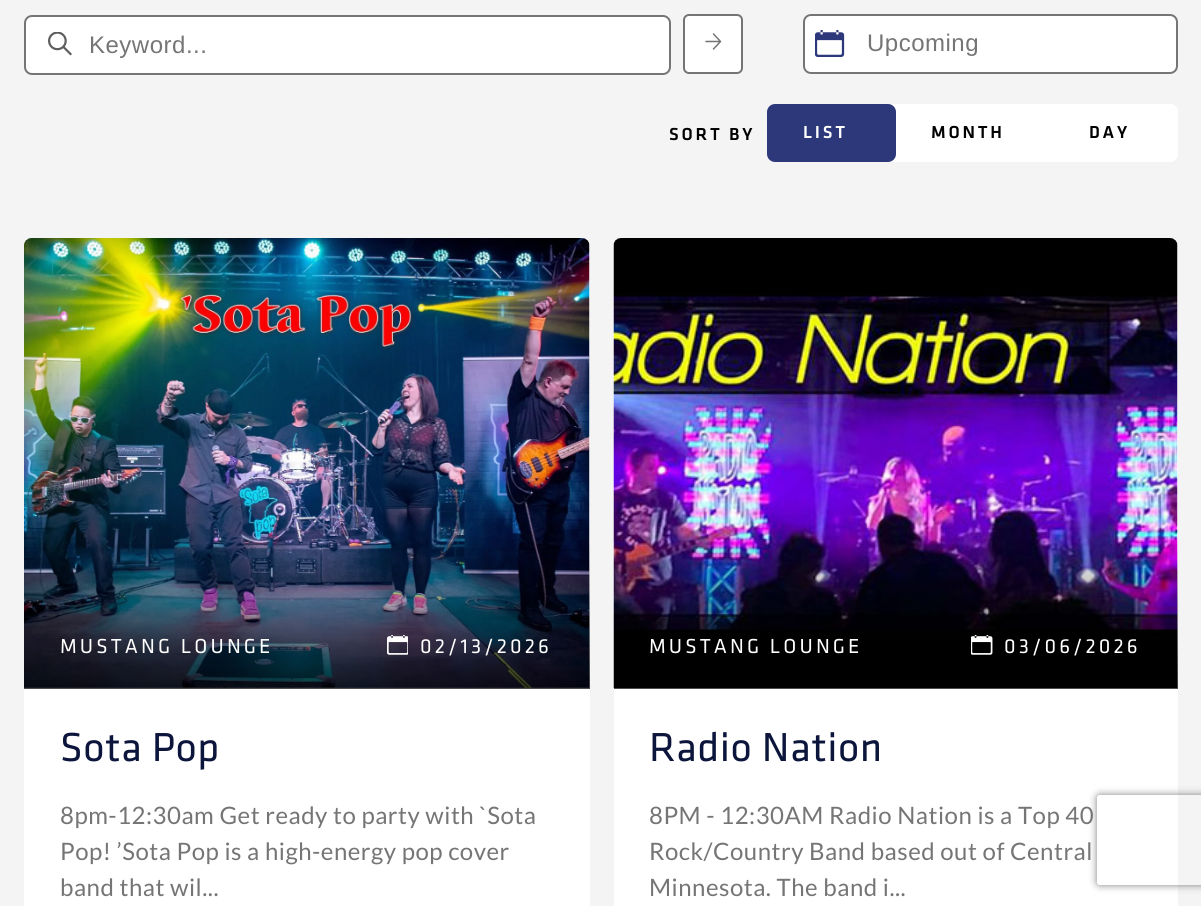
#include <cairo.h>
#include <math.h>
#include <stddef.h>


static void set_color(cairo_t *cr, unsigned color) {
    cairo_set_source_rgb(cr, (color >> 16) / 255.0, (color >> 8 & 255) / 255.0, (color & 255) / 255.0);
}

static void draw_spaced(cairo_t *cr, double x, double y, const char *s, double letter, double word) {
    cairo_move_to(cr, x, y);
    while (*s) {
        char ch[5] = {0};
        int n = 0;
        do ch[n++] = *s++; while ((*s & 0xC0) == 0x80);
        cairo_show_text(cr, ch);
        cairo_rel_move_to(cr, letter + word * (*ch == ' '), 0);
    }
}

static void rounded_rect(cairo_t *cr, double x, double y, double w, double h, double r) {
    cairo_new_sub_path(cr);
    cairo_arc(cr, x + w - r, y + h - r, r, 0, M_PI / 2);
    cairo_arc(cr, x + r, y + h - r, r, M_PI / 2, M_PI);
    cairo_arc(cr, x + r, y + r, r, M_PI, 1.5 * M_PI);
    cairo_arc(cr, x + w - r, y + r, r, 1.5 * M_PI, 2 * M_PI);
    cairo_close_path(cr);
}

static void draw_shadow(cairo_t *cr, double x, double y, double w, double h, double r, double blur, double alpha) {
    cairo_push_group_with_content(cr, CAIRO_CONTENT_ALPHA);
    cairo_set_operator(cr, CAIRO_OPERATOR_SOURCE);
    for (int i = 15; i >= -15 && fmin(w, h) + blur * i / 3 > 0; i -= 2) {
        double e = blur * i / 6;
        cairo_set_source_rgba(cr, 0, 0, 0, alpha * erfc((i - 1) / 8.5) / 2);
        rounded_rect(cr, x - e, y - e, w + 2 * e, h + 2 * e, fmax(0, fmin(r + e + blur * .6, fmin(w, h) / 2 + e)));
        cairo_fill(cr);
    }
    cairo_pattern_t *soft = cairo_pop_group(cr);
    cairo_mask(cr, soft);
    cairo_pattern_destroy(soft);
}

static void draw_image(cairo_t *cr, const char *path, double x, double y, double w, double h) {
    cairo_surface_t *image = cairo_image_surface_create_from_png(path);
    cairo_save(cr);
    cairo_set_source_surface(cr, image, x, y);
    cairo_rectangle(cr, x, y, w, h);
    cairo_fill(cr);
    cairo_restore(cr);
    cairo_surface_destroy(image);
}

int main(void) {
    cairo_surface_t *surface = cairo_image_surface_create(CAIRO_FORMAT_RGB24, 1201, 906);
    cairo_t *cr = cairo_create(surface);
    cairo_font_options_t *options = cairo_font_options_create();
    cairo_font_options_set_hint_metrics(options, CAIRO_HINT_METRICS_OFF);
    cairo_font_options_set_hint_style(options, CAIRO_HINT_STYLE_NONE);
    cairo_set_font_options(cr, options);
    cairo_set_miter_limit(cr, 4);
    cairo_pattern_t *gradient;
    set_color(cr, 0xF4F4F4);
    cairo_paint(cr);
    set_color(cr, 0xFFFFFF);
    rounded_rect(cr, 25, 16, 645, 58, 7);
    cairo_fill_preserve(cr);
    set_color(cr, 0x757575);
    cairo_stroke(cr);
    draw_image(cr, "assets/img1.png", 48, 32, 24, 24);
    cairo_select_font_face(cr, "Liberation Sans", CAIRO_FONT_SLANT_NORMAL, CAIRO_FONT_WEIGHT_NORMAL);
    cairo_set_font_size(cr, 24);
    draw_spaced(cr, 89, 53, "Keyword...", 0.5, 0);
    set_color(cr, 0xFFFFFF);
    rounded_rect(cr, 684, 15, 58, 58, 5);
    cairo_fill_preserve(cr);
    set_color(cr, 0x757575);
    cairo_stroke(cr);
    cairo_new_path(cr);
    cairo_move_to(cr, 706, 41.5);
    cairo_line_to(cr, 720.5, 41.5);
    cairo_move_to(cr, 713.5, 34);
    cairo_line_to(cr, 720.5, 41.5);
    cairo_line_to(cr, 713.5, 49);
    cairo_set_line_width(cr, 1.5);
    cairo_set_line_cap(cr, CAIRO_LINE_CAP_ROUND);
    cairo_set_line_join(cr, CAIRO_LINE_JOIN_ROUND);
    cairo_stroke(cr);
    set_color(cr, 0xFFFFFF);
    rounded_rect(cr, 803, 14, 375, 60, 8);
    cairo_fill(cr);
    draw_image(cr, "assets/img2.png", 815, 30, 30, 27);
    rounded_rect(cr, 804, 15, 373, 58, 7);
    set_color(cr, 0x757575);
    cairo_set_line_width(cr, 2);
    cairo_set_line_cap(cr, CAIRO_LINE_CAP_BUTT);
    cairo_set_line_join(cr, CAIRO_LINE_JOIN_MITER);
    cairo_stroke(cr);
    draw_spaced(cr, 867, 51, "Upcoming", 0.5, 0);
    cairo_select_font_face(cr, "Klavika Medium", CAIRO_FONT_SLANT_NORMAL, CAIRO_FONT_WEIGHT_NORMAL);
    cairo_set_font_size(cr, 18);
    set_color(cr, 0x000000);
    draw_spaced(cr, 669, 140, "SORT BY", 2.75, 0);
    set_color(cr, 0xFFFFFF);
    rounded_rect(cr, 767, 104, 411, 58, 8);
    cairo_fill(cr);
    set_color(cr, 0x2D387B);
    rounded_rect(cr, 767, 104, 129, 58, 8);
    cairo_fill(cr);
    set_color(cr, 0xFFFFFF);
    draw_spaced(cr, 803, 138, "LIST", 2.75, 0);
    set_color(cr, 0x000000);
    draw_spaced(cr, 931, 138, "MONTH", 2.75, 0);
    set_color(cr, 0xFFFFFF);
    rounded_rect(cr, 1053, 104, 125, 58, 8);
    cairo_fill(cr);
    set_color(cr, 0x000000);
    draw_spaced(cr, 1089, 138, "DAY", 2.75, 0);
    set_color(cr, 0xFFFFFF);
    rounded_rect(cr, 24, 239, 566, 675, 8);
    cairo_fill(cr);
    draw_image(cr, "assets/img3.png", 24, 238, 566, 450);
    gradient = cairo_pattern_create_linear(307, 689, 307, 539);
    cairo_pattern_add_color_stop_rgba(gradient, 0, 0, 0, 0, 0.7);
    cairo_pattern_add_color_stop_rgba(gradient, 1, 0, 0, 0, 0);
    cairo_set_source(cr, gradient);
    cairo_pattern_destroy(gradient);
    cairo_rectangle(cr, 24, 544, 566, 145);
    cairo_fill(cr);
    cairo_select_font_face(cr, "Klavika", CAIRO_FONT_SLANT_NORMAL, CAIRO_FONT_WEIGHT_NORMAL);
    cairo_set_font_size(cr, 21);
    set_color(cr, 0xFFFFFF);
    draw_spaced(cr, 60, 653, "MUSTANG LOUNGE", 3.1, 0);
    draw_image(cr, "assets/img4.png", 387, 635, 21, 20);
    draw_spaced(cr, 420, 653, "02/13/2026", 3.1, 0);
    cairo_set_font_size(cr, 42);
    set_color(cr, 0x0C153B);
    draw_spaced(cr, 60, 761, "Sota Pop", 0.5, 0);
    cairo_select_font_face(cr, "Lato", CAIRO_FONT_SLANT_NORMAL, CAIRO_FONT_WEIGHT_NORMAL);
    cairo_set_font_size(cr, 24);
    set_color(cr, 0x757575);
    draw_spaced(cr, 60, 824, "8pm-12:30am Get ready to party with `Sota", 0.5, 0);
    draw_spaced(cr, 60, 860, "Pop! ’Sota Pop is a high-energy pop cover", 0.5, 0);
    draw_spaced(cr, 60, 896, "band that wil...", 0.5, 0);
    set_color(cr, 0xFFFFFF);
    rounded_rect(cr, 614, 239, 564, 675, 8);
    cairo_fill(cr);
    draw_image(cr, "assets/img5.png", 613, 238, 565, 450);
    gradient = cairo_pattern_create_linear(896, 689, 896, 539);
    cairo_pattern_add_color_stop_rgba(gradient, 0, 0, 0, 0, 0.7);
    cairo_pattern_add_color_stop_rgba(gradient, 1, 0, 0, 0, 0);
    cairo_set_source(cr, gradient);
    cairo_pattern_destroy(gradient);
    cairo_rectangle(cr, 614, 544, 564, 145);
    cairo_fill(cr);
    cairo_select_font_face(cr, "Klavika", CAIRO_FONT_SLANT_NORMAL, CAIRO_FONT_WEIGHT_NORMAL);
    cairo_set_font_size(cr, 21);
    set_color(cr, 0xFFFFFF);
    draw_spaced(cr, 649, 653, "MUSTANG LOUNGE", 3.1, 0);
    draw_image(cr, "assets/img6.png", 971, 635, 22, 20);
    draw_spaced(cr, 1004, 653, "03/06/2026", 3.1, 0);
    cairo_set_font_size(cr, 42);
    set_color(cr, 0x0C153B);
    draw_spaced(cr, 649, 761, "Radio Nation", 0.5, 0);
    cairo_select_font_face(cr, "Lato", CAIRO_FONT_SLANT_NORMAL, CAIRO_FONT_WEIGHT_NORMAL);
    cairo_set_font_size(cr, 24);
    set_color(cr, 0x757575);
    draw_spaced(cr, 649, 824, "8PM - 12:30AM Radio Nation is a Top 40", 0.5, 0);
    draw_spaced(cr, 649, 860, "Rock/Country Band based out of Central", 0.5, 0);
    draw_spaced(cr, 649, 896, "Minnesota. The band i...", 0.5, 0);
    cairo_save(cr);
    cairo_set_fill_rule(cr, CAIRO_FILL_RULE_EVEN_ODD);
    cairo_new_path(cr);
    cairo_move_to(cr, 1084, 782);
    cairo_line_to(cr, 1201, 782);
    cairo_line_to(cr, 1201, 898);
    cairo_line_to(cr, 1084, 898);
    cairo_close_path(cr);
    cairo_move_to(cr, 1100, 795);
    cairo_line_to(cr, 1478, 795);
    cairo_curve_to(cr, 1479.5, 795, 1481, 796.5, 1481, 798);
    cairo_line_to(cr, 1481, 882);
    cairo_curve_to(cr, 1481, 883.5, 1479.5, 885, 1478, 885);
    cairo_line_to(cr, 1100, 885);
    cairo_curve_to(cr, 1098.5, 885, 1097, 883.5, 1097, 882);
    cairo_line_to(cr, 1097, 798);
    cairo_curve_to(cr, 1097, 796.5, 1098.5, 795, 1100, 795);
    cairo_close_path(cr);
    cairo_clip(cr);
    set_color(cr, 0x808080);
    draw_shadow(cr, 1097, 795, 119, 90, 3, 4, 1);
    cairo_restore(cr);
    cairo_surface_write_to_png(surface, "output.png");
    cairo_font_options_destroy(options);
    cairo_destroy(cr);
    cairo_surface_destroy(surface);
    return 0;
}
